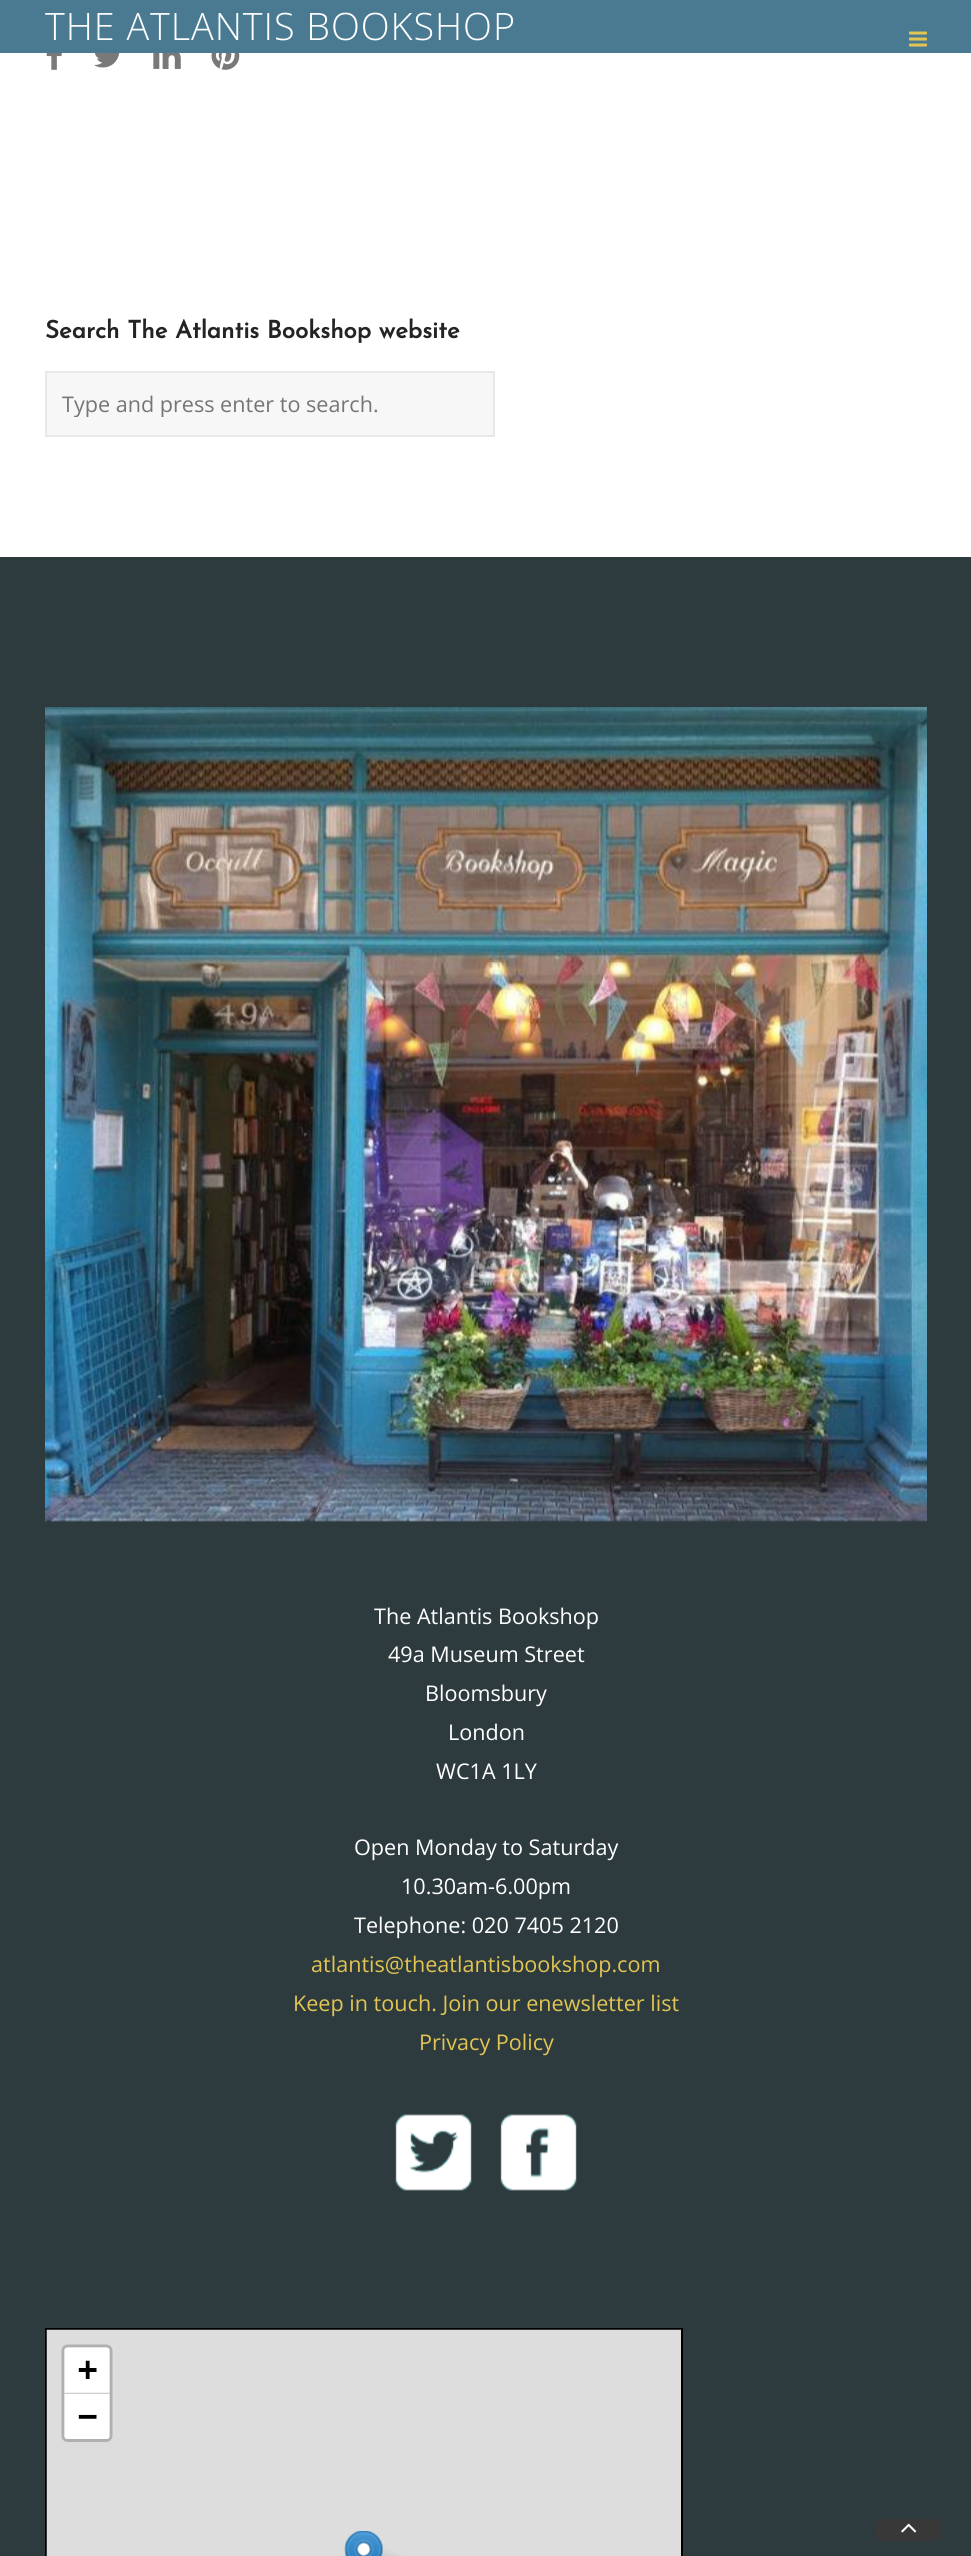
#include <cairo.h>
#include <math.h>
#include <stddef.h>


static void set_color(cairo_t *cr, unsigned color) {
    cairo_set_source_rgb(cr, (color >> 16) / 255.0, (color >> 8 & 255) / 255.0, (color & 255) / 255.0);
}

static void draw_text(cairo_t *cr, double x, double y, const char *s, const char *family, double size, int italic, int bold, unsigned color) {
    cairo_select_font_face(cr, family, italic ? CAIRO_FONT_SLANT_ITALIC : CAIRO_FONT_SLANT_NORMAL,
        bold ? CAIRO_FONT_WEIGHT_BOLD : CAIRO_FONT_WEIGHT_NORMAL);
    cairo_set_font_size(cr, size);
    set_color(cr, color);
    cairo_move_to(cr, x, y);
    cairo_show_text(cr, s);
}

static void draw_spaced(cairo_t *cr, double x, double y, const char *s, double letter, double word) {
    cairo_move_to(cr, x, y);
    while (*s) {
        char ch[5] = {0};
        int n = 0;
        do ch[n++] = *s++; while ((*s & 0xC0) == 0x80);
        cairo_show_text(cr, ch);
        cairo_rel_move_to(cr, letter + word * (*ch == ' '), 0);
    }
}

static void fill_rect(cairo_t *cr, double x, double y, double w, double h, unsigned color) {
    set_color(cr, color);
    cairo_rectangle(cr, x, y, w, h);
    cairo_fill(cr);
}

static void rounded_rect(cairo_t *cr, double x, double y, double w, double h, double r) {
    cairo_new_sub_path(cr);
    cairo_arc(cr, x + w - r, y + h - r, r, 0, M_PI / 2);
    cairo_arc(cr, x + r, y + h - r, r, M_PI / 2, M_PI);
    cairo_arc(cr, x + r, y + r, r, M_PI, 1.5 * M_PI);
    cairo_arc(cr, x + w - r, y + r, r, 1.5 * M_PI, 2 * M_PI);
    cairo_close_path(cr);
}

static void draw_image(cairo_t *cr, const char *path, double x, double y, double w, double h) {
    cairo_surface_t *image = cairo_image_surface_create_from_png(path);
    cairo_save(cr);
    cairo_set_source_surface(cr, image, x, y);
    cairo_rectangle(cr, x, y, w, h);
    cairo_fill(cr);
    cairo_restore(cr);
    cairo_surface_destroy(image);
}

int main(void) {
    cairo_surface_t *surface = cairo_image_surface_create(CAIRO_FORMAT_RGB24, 971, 2556);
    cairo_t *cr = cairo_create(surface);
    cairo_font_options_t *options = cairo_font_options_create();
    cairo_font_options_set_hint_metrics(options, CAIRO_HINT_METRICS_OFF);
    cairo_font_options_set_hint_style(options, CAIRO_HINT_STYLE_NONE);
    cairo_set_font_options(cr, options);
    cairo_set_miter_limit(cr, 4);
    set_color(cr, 0xFFFFFF);
    cairo_paint(cr);
    fill_rect(cr, 0, 0, 971, 53, 0x4A7A92);
    cairo_select_font_face(cr, "Open Sans Light", CAIRO_FONT_SLANT_NORMAL, CAIRO_FONT_WEIGHT_NORMAL);
    cairo_set_font_size(cr, 37.75);
    set_color(cr, 0xFFFFFF);
    draw_spaced(cr, 45, 40, "THE ATLANTIS BOOKSHOP", 0.95, 0);
    draw_image(cr, "assets/img1.png", 909, 31, 18, 16);
    draw_image(cr, "assets/img2.png", 46, 53, 16, 17);
    draw_image(cr, "assets/img3.png", 94, 53, 26, 15);
    draw_image(cr, "assets/img4.png", 153, 53, 28, 16);
    draw_image(cr, "assets/img5.png", 211, 53, 29, 17);
    draw_text(cr, 45, 338, "Search The Atlantis Bookshop website", "Josefin Sans", 24.25, 0, 1, 0x242424);
    set_color(cr, 0xF7F7F7);
    cairo_rectangle(cr, 46, 372, 448, 64);
    cairo_fill_preserve(cr);
    set_color(cr, 0xE8E8E8);
    cairo_stroke(cr);
    cairo_save(cr);
    cairo_rectangle(cr, 62, 389, 417, 28);
    cairo_clip(cr);
    draw_text(cr, 62, 412, "Type and press enter to search.", "Open Sans", 21.6, 0, 0, 0x757575);
    cairo_restore(cr);
    fill_rect(cr, 0, 557, 971, 1999, 0x2D3B3E);
    draw_image(cr, "assets/img6.png", 45, 707, 882, 815);
    draw_text(cr, 374, 1624, "The Atlantis Bookshop", "Open Sans", 21.6, 0, 0, 0xFFFFFF);
    draw_text(cr, 388, 1662, "49a Museum Street", "Open Sans", 21.6, 0, 0, 0xFFFFFF);
    draw_text(cr, 425, 1701, "Bloomsbury", "Open Sans", 21.6, 0, 0, 0xFFFFFF);
    draw_text(cr, 448, 1740, "London", "Open Sans", 21.6, 0, 0, 0xFFFFFF);
    draw_text(cr, 436, 1779, "WC1A 1LY", "Open Sans", 21.6, 0, 0, 0xFFFFFF);
    draw_text(cr, 354, 1855, "Open Monday to Saturday", "Open Sans", 21.6, 0, 0, 0xFFFFFF);
    draw_text(cr, 401, 1894, "10.30am-6.00pm", "Open Sans", 21.6, 0, 0, 0xFFFFFF);
    draw_text(cr, 354, 1933, "Telephone: 020 7405 2120", "Open Sans", 21.6, 0, 0, 0xFFFFFF);
    draw_text(cr, 311, 1972, "atlantis@theatlantisbookshop.com", "Open Sans", 21.6, 0, 0, 0xE2C452);
    draw_text(cr, 293, 2011, "Keep in touch. Join our enewsletter list", "Open Sans", 21.6, 0, 0, 0xE2C452);
    draw_text(cr, 419, 2050, "Privacy Policy", "Open Sans", 21.6, 0, 0, 0xE2C452);
    draw_image(cr, "assets/img7.png", 395, 2114, 77, 77);
    draw_image(cr, "assets/img8.png", 500, 2114, 77, 77);
    cairo_rectangle(cr, 46, 2329, 636, 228);
    set_color(cr, 0x000000);
    cairo_stroke(cr);
    draw_image(cr, "assets/img9.png", 46, 2329, 635, 227);
    set_color(cr, 0x383838);
    rounded_rect(cr, 876, 2519, 66, 22, 5);
    cairo_fill(cr);
    draw_image(cr, "assets/img10.png", 901, 2523, 16, 10);
    cairo_surface_write_to_png(surface, "output.png");
    cairo_font_options_destroy(options);
    cairo_destroy(cr);
    cairo_surface_destroy(surface);
    return 0;
}
